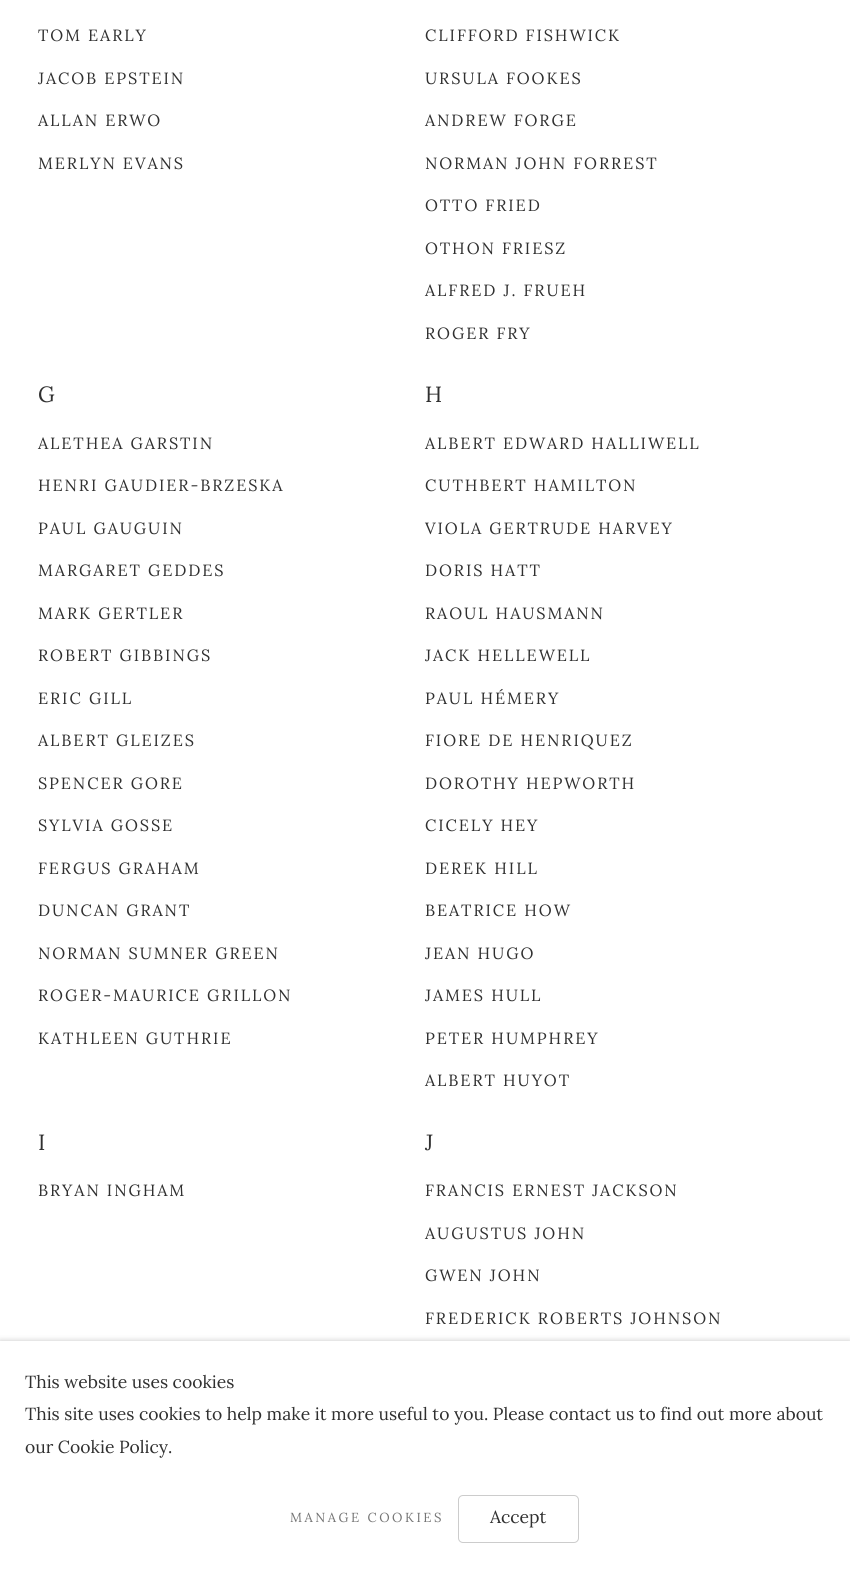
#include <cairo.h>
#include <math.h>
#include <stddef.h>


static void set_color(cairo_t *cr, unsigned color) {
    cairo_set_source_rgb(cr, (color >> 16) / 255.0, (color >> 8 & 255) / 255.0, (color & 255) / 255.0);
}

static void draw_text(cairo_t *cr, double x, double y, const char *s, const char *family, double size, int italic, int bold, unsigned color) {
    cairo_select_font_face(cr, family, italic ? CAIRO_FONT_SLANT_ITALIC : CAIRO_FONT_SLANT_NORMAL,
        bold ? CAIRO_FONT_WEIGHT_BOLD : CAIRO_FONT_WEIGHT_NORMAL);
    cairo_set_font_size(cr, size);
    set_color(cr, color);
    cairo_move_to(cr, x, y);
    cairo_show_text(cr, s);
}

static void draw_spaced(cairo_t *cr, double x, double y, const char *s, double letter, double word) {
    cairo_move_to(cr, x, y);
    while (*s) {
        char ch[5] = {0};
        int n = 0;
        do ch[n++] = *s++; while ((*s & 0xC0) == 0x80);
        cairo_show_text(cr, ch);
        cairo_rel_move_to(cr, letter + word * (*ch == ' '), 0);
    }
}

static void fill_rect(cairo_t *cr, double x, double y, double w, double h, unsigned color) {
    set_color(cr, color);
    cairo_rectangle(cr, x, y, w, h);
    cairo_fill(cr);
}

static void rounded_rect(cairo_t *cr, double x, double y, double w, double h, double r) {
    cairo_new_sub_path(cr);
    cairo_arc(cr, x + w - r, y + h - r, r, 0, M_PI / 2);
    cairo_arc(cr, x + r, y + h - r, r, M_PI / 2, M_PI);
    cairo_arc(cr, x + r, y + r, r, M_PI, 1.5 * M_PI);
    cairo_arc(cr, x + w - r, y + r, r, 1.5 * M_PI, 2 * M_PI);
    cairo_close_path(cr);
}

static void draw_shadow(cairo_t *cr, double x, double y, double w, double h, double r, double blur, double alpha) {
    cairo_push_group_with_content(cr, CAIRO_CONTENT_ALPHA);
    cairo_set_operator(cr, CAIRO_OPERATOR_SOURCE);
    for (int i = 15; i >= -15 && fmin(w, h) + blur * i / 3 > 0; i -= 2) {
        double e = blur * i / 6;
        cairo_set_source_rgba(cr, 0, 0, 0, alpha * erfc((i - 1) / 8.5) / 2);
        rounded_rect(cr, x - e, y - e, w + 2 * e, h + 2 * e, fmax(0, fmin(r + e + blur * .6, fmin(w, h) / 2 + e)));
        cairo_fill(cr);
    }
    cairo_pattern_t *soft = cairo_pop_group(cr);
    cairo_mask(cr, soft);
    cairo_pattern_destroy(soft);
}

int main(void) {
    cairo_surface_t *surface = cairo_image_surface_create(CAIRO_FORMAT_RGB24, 850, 1572);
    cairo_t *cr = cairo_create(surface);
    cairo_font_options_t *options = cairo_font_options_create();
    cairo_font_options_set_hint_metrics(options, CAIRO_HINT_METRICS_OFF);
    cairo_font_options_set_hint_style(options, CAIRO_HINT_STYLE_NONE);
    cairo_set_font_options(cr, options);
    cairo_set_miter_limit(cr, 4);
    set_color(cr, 0xFFFFFF);
    cairo_paint(cr);
    cairo_select_font_face(cr, "Lora", CAIRO_FONT_SLANT_NORMAL, CAIRO_FONT_WEIGHT_NORMAL);
    cairo_set_font_size(cr, 16.25);
    set_color(cr, 0x303030);
    draw_spaced(cr, 38, 41, "TOM EARLY", 1.9, 0);
    draw_spaced(cr, 38, 84, "JACOB EPSTEIN", 1.9, 0);
    draw_spaced(cr, 38, 126, "ALLAN ERWO", 1.9, 0);
    draw_spaced(cr, 38, 169, "MERLYN EVANS", 1.9, 0);
    draw_spaced(cr, 425, 41, "CLIFFORD FISHWICK", 1.9, 0);
    draw_spaced(cr, 425, 84, "URSULA FOOKES", 1.9, 0);
    draw_spaced(cr, 425, 126, "ANDREW FORGE", 1.9, 0);
    draw_spaced(cr, 425, 169, "NORMAN JOHN FORREST", 1.9, 0);
    draw_spaced(cr, 425, 211, "OTTO FRIED", 1.9, 0);
    draw_spaced(cr, 425, 254, "OTHON FRIESZ", 1.9, 0);
    draw_spaced(cr, 425, 296, "ALFRED J. FRUEH", 1.9, 0);
    draw_spaced(cr, 425, 339, "ROGER FRY", 1.9, 0);
    cairo_set_font_size(cr, 22);
    draw_spaced(cr, 38, 402, "G", 4, 0);
    cairo_set_font_size(cr, 16.25);
    draw_spaced(cr, 38, 449, "ALETHEA GARSTIN", 1.9, 0);
    draw_spaced(cr, 38, 491, "HENRI GAUDIER-BRZESKA", 1.9, 0);
    draw_spaced(cr, 38, 534, "PAUL GAUGUIN", 1.9, 0);
    draw_spaced(cr, 38, 576, "MARGARET GEDDES", 1.9, 0);
    draw_spaced(cr, 38, 619, "MARK GERTLER", 1.9, 0);
    draw_spaced(cr, 38, 661, "ROBERT GIBBINGS", 1.9, 0);
    draw_spaced(cr, 38, 704, "ERIC GILL", 1.9, 0);
    draw_spaced(cr, 38, 746, "ALBERT GLEIZES", 1.9, 0);
    draw_spaced(cr, 38, 789, "SPENCER GORE", 1.9, 0);
    draw_spaced(cr, 38, 831, "SYLVIA GOSSE", 1.9, 0);
    draw_spaced(cr, 38, 874, "FERGUS GRAHAM", 1.9, 0);
    draw_spaced(cr, 38, 916, "DUNCAN GRANT", 1.9, 0);
    draw_spaced(cr, 38, 959, "NORMAN SUMNER GREEN", 1.9, 0);
    draw_spaced(cr, 38, 1001, "ROGER-MAURICE GRILLON", 1.9, 0);
    draw_spaced(cr, 38, 1044, "KATHLEEN GUTHRIE", 1.9, 0);
    cairo_set_font_size(cr, 22);
    draw_spaced(cr, 425, 402, "H", 4, 0);
    cairo_set_font_size(cr, 16.25);
    draw_spaced(cr, 425, 449, "ALBERT EDWARD HALLIWELL", 1.9, 0);
    draw_spaced(cr, 425, 491, "CUTHBERT HAMILTON", 1.9, 0);
    draw_spaced(cr, 425, 534, "VIOLA GERTRUDE HARVEY", 1.9, 0);
    draw_spaced(cr, 425, 576, "DORIS HATT", 1.9, 0);
    draw_spaced(cr, 425, 619, "RAOUL HAUSMANN", 1.9, 0);
    draw_spaced(cr, 425, 661, "JACK HELLEWELL", 1.9, 0);
    draw_spaced(cr, 425, 704, "PAUL HÉMERY", 1.9, 0);
    draw_spaced(cr, 425, 746, "FIORE DE HENRIQUEZ", 1.9, 0);
    draw_spaced(cr, 425, 789, "DOROTHY HEPWORTH", 1.9, 0);
    draw_spaced(cr, 425, 831, "CICELY HEY", 1.9, 0);
    draw_spaced(cr, 425, 874, "DEREK HILL", 1.9, 0);
    draw_spaced(cr, 425, 916, "BEATRICE HOW", 1.9, 0);
    draw_spaced(cr, 425, 959, "JEAN HUGO", 1.9, 0);
    draw_spaced(cr, 425, 1001, "JAMES HULL", 1.9, 0);
    draw_spaced(cr, 425, 1044, "PETER HUMPHREY", 1.9, 0);
    draw_spaced(cr, 425, 1086, "ALBERT HUYOT", 1.9, 0);
    cairo_set_font_size(cr, 22);
    draw_spaced(cr, 38, 1150, "I", 4, 0);
    cairo_set_font_size(cr, 16.25);
    draw_spaced(cr, 38, 1196, "BRYAN INGHAM", 1.9, 0);
    cairo_set_font_size(cr, 22);
    draw_spaced(cr, 425, 1150, "J", 4, 0);
    cairo_set_font_size(cr, 16.25);
    draw_spaced(cr, 425, 1196, "FRANCIS ERNEST JACKSON", 1.9, 0);
    draw_spaced(cr, 425, 1239, "AUGUSTUS JOHN", 1.9, 0);
    draw_spaced(cr, 425, 1281, "GWEN JOHN", 1.9, 0);
    draw_spaced(cr, 425, 1324, "FREDERICK ROBERTS JOHNSON", 1.9, 0);
    set_color(cr, 0x000000);
    draw_shadow(cr, 0, 1341, 850, 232, 0, 3, 0.23);
    fill_rect(cr, 0, 1341, 850, 231, 0xFFFFFF);
    draw_text(cr, 25, 1388, "This website uses cookies", "Lora", 17.5, 0, 0, 0x303030);
    draw_text(cr, 25, 1420, "This site uses cookies to help make it more useful to you. Please contact us to find out more about", "Lora", 17.5, 0, 0, 0x303030);
    draw_text(cr, 25, 1453, "our Cookie Policy.", "Lora", 17.5, 0, 0, 0x303030);
    cairo_set_font_size(cr, 13.1);
    set_color(cr, 0x757575);
    draw_spaced(cr, 290, 1522, "MANAGE COOKIES", 2.5, 0);
    rounded_rect(cr, 458.5, 1495.5, 120, 47, 4.5);
    set_color(cr, 0xCCCCCC);
    cairo_set_line_width(cr, 1);
    cairo_stroke(cr);
    draw_text(cr, 490, 1523, "Accept", "Lora", 17.5, 0, 0, 0x303030);
    cairo_surface_write_to_png(surface, "output.png");
    cairo_font_options_destroy(options);
    cairo_destroy(cr);
    cairo_surface_destroy(surface);
    return 0;
}
